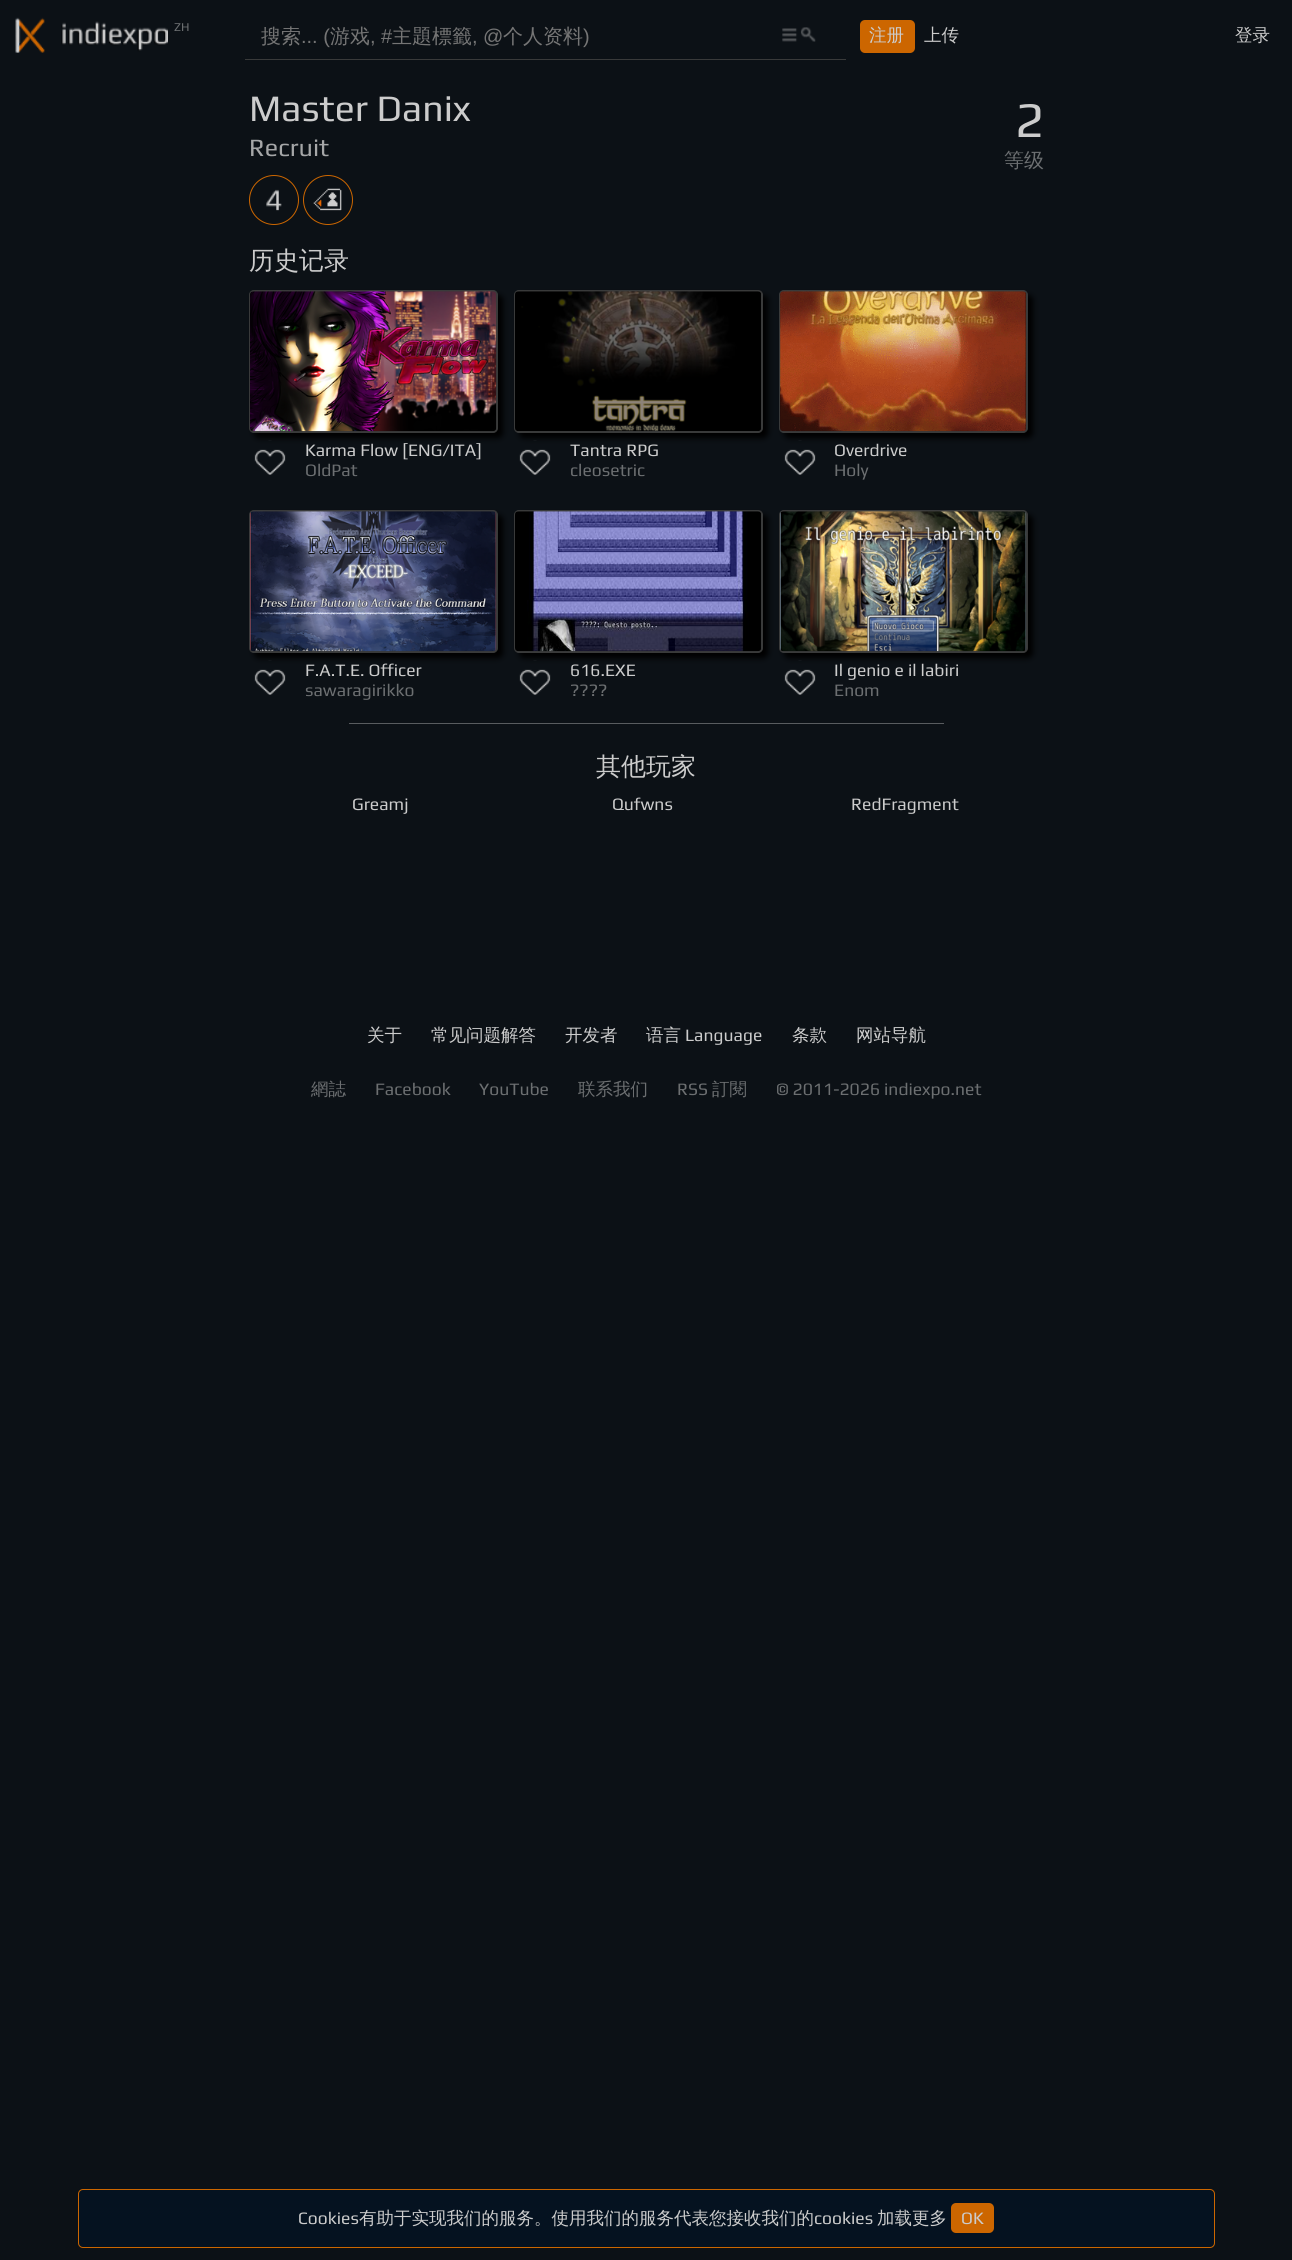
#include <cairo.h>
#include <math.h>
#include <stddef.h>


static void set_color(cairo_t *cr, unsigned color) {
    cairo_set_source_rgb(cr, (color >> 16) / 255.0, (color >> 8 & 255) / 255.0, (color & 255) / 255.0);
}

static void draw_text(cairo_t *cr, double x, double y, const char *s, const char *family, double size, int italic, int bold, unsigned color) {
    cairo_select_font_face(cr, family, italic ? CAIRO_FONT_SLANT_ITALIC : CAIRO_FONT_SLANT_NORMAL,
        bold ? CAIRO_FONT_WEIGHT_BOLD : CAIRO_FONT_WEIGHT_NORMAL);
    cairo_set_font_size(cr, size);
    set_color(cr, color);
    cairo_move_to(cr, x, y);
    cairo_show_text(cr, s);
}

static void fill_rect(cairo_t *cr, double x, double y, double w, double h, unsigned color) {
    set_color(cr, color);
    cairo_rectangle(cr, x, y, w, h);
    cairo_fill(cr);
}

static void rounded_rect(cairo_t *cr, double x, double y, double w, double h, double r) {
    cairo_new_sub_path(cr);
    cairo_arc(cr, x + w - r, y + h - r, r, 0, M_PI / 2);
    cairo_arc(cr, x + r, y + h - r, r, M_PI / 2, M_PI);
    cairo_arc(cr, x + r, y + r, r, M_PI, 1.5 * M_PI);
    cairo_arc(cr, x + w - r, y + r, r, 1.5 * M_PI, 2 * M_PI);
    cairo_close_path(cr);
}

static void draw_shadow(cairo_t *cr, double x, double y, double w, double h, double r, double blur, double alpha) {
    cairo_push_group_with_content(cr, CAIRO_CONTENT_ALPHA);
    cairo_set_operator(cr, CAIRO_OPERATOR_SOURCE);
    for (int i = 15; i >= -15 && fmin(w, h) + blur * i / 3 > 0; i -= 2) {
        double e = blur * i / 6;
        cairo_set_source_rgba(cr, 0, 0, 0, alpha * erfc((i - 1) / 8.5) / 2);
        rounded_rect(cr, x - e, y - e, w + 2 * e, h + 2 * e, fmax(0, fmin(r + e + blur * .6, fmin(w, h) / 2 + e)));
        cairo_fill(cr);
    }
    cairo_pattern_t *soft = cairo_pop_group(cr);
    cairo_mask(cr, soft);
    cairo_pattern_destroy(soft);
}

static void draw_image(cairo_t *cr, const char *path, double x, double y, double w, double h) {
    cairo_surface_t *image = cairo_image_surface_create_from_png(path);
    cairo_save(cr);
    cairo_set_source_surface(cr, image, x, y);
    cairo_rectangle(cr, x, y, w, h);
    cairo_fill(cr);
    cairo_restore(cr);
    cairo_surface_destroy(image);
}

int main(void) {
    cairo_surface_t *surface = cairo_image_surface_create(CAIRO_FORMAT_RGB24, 1292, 2260);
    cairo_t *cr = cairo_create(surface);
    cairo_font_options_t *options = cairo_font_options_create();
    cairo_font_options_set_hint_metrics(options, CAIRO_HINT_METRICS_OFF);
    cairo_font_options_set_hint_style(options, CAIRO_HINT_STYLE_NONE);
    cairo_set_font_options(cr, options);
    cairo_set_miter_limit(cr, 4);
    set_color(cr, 0x0C1116);
    cairo_paint(cr);
    draw_image(cr, "assets/img1.png", 15, 17, 153, 36);
    draw_text(cr, 174, 31, "ZH", "Play", 12, 0, 0, 0x6C6F71);
    fill_rect(cr, 245, 59, 601, 1, 0x393A3A);
    draw_text(cr, 261, 43, "搜索", "WenQuanYi Zen Hei Medium", 20, 0, 0, 0x757575);
    draw_text(cr, 301, 43, "... (", "Liberation Sans", 20, 0, 0, 0x757575);
    draw_text(cr, 330, 43, "游戏", "WenQuanYi Zen Hei Medium", 20, 0, 0, 0x757575);
    draw_text(cr, 370, 43, ", #", "Liberation Sans", 20, 0, 0, 0x757575);
    draw_text(cr, 392, 43, "主題標籤", "WenQuanYi Zen Hei Medium", 20, 0, 0, 0x757575);
    draw_text(cr, 472, 43, ", @", "Liberation Sans", 20, 0, 0, 0x757575);
    draw_text(cr, 503, 43, "个人资料", "WenQuanYi Zen Hei Medium", 20, 0, 0, 0x757575);
    draw_text(cr, 583, 43, ")", "Liberation Sans", 20, 0, 0, 0x757575);
    draw_image(cr, "assets/img2.png", 782, 27, 34, 15);
    set_color(cr, 0xCC6600);
    rounded_rect(cr, 860, 20, 55, 33, 5);
    cairo_fill(cr);
    draw_text(cr, 869, 41, "注册", "WenQuanYi Zen Hei Medium", 17.5, 0, 0, 0xCCCCCC);
    draw_text(cr, 924, 41, "上传", "WenQuanYi Zen Hei Medium", 17.5, 0, 0, 0xCCCCCC);
    draw_text(cr, 1235, 41, "登录", "WenQuanYi Zen Hei Medium", 17.5, 0, 0, 0xCCCCCC);
    draw_text(cr, 249, 121, "Master Danix", "Play", 37.5, 0, 0, 0xCCCCCC);
    draw_text(cr, 249, 156, "Recruit", "Play", 25, 0, 0, 0xA6A7A8);
    draw_text(cr, 1015, 137, "2", "Play", 50, 0, 0, 0xCCCCCC);
    draw_text(cr, 1004, 167, "等级", "WenQuanYi Zen Hei Medium", 20, 0, 0, 0x6C6F71);
    cairo_new_path(cr);
    cairo_arc(cr, 274, 200, 24.5, 0, 2 * M_PI);
    set_color(cr, 0xCC6600);
    cairo_set_line_width(cr, 1);
    cairo_stroke(cr);
    cairo_arc(cr, 328, 200, 24.5, 0, 2 * M_PI);
    cairo_stroke(cr);
    draw_image(cr, "assets/img3.png", 266, 189, 16, 22);
    draw_image(cr, "assets/img4.png", 313, 188, 29, 23);
    draw_text(cr, 249, 269, "历史记录", "WenQuanYi Zen Hei Medium", 25, 0, 0, 0xCCCCCC);
    draw_image(cr, "assets/img6.png", 254, 440, 32, 35);
    set_color(cr, 0x000000);
    draw_shadow(cr, 254, 295, 249, 143, 5, 3, 1);
    set_color(cr, 0x393A3A);
    rounded_rect(cr, 249.5, 290.5, 248, 142, 4.5);
    cairo_fill_preserve(cr);
    cairo_stroke(cr);
    draw_image(cr, "assets/img5.png", 250, 291, 247, 141);
    draw_text(cr, 305, 456, "Karma Flow [ENG/ITA]", "Play", 17.5, 0, 0, 0xCCCCCC);
    draw_text(cr, 305, 476, "OldPat", "Play", 17.5, 0, 0, 0x6C6F71);
    draw_image(cr, "assets/img8.png", 519, 440, 32, 35);
    set_color(cr, 0x000000);
    draw_shadow(cr, 519, 295, 249, 143, 5, 3, 1);
    set_color(cr, 0x393A3A);
    rounded_rect(cr, 514.5, 290.5, 248, 142, 4.5);
    cairo_fill_preserve(cr);
    cairo_stroke(cr);
    draw_image(cr, "assets/img7.png", 515, 291, 246, 140);
    draw_text(cr, 570, 456, "Tantra RPG", "Play", 17.5, 0, 0, 0xCCCCCC);
    draw_text(cr, 570, 476, "cleosetric", "Play", 17.5, 0, 0, 0x6C6F71);
    draw_image(cr, "assets/img10.png", 784, 440, 32, 35);
    set_color(cr, 0x000000);
    draw_shadow(cr, 784, 295, 249, 143, 5, 3, 1);
    set_color(cr, 0x393A3A);
    rounded_rect(cr, 779.5, 290.5, 248, 142, 4.5);
    cairo_fill_preserve(cr);
    cairo_stroke(cr);
    draw_image(cr, "assets/img9.png", 780, 291, 246, 141);
    draw_text(cr, 834, 456, "Overdrive", "Play", 17.5, 0, 0, 0xCCCCCC);
    draw_text(cr, 834, 476, "Holy", "Play", 17.5, 0, 0, 0x6C6F71);
    draw_image(cr, "assets/img12.png", 254, 660, 32, 35);
    set_color(cr, 0x000000);
    draw_shadow(cr, 254, 515, 249, 143, 5, 3, 1);
    set_color(cr, 0x393A3A);
    rounded_rect(cr, 249.5, 510.5, 248, 142, 4.5);
    cairo_fill_preserve(cr);
    cairo_stroke(cr);
    draw_image(cr, "assets/img11.png", 250, 511, 247, 141);
    draw_text(cr, 305, 676, "F.A.T.E. Officer", "Play", 17.5, 0, 0, 0xCCCCCC);
    draw_text(cr, 305, 696, "sawaragirikko", "Play", 17.5, 0, 0, 0x6C6F71);
    draw_image(cr, "assets/img14.png", 519, 660, 32, 35);
    set_color(cr, 0x000000);
    draw_shadow(cr, 519, 515, 249, 143, 5, 3, 1);
    set_color(cr, 0x393A3A);
    rounded_rect(cr, 514.5, 510.5, 248, 142, 4.5);
    cairo_fill_preserve(cr);
    cairo_stroke(cr);
    draw_image(cr, "assets/img13.png", 515, 511, 246, 141);
    draw_text(cr, 570, 676, "616.EXE", "Play", 17.5, 0, 0, 0xCCCCCC);
    draw_text(cr, 570, 696, "?\077?\077", "Play", 17.5, 0, 0, 0x6C6F71);
    draw_image(cr, "assets/img14.png", 784, 660, 32, 35);
    set_color(cr, 0x000000);
    draw_shadow(cr, 784, 515, 249, 143, 5, 3, 1);
    set_color(cr, 0x393A3A);
    rounded_rect(cr, 779.5, 510.5, 248, 142, 4.5);
    cairo_fill_preserve(cr);
    cairo_stroke(cr);
    draw_image(cr, "assets/img15.png", 780, 511, 247, 141);
    draw_text(cr, 834, 676, "Il genio e il labiri", "Play", 17.5, 0, 0, 0xCCCCCC);
    draw_text(cr, 834, 696, "Enom", "Play", 17.5, 0, 0, 0x6C6F71);
    fill_rect(cr, 349, 723, 595, 1, 0x595C5F);
    draw_text(cr, 596, 775, "其他玩家", "WenQuanYi Zen Hei Medium", 25, 0, 0, 0xCCCCCC);
    draw_text(cr, 352, 810, "Greamj", "Play", 17.5, 0, 0, 0xCCCCCC);
    draw_text(cr, 612, 810, "Qufwns", "Play", 17.5, 0, 0, 0xCCCCCC);
    draw_text(cr, 851, 810, "RedFragment", "Play", 17.5, 0, 0, 0xCCCCCC);
    draw_text(cr, 367, 1041, "关于", "WenQuanYi Zen Hei Medium", 17.5, 0, 0, 0xCCCCCC);
    draw_text(cr, 431, 1041, "常见问题解答", "WenQuanYi Zen Hei Medium", 17.5, 0, 0, 0xCCCCCC);
    draw_text(cr, 565, 1041, "开发者", "WenQuanYi Zen Hei Medium", 17.5, 0, 0, 0xCCCCCC);
    draw_text(cr, 646, 1041, "语言", "WenQuanYi Zen Hei Medium", 17.5, 0, 0, 0xCCCCCC);
    draw_text(cr, 685, 1041, "Language", "Play", 17.5, 0, 0, 0xCCCCCC);
    draw_text(cr, 792, 1041, "条款", "WenQuanYi Zen Hei Medium", 17.5, 0, 0, 0xCCCCCC);
    draw_text(cr, 856, 1041, "网站导航", "WenQuanYi Zen Hei Medium", 17.5, 0, 0, 0xCCCCCC);
    draw_text(cr, 311, 1095, "網誌", "WenQuanYi Zen Hei Medium", 17.5, 0, 0, 0x6C6F71);
    draw_text(cr, 375, 1095, "Facebook", "Play", 17.5, 0, 0, 0x6C6F71);
    draw_text(cr, 479, 1095, "YouTube", "Play", 17.5, 0, 0, 0x6C6F71);
    draw_text(cr, 578, 1095, "联系我们", "WenQuanYi Zen Hei Medium", 17.5, 0, 0, 0x6C6F71);
    draw_text(cr, 677, 1095, "RSS", "Play", 17.5, 0, 0, 0x6C6F71);
    draw_text(cr, 712, 1095, "訂閱", "WenQuanYi Zen Hei Medium", 17.5, 0, 0, 0x6C6F71);
    draw_text(cr, 776, 1095, "© 2011-2026 indiexpo.net", "Play", 17.5, 0, 0, 0x6C6F71);
    set_color(cr, 0x051220);
    rounded_rect(cr, 78.5, 2189.5, 1136, 58, 4.5);
    cairo_fill_preserve(cr);
    set_color(cr, 0xCC6600);
    cairo_stroke(cr);
    draw_text(cr, 298, 2224, "Cookies", "Play", 17.5, 0, 0, 0xCCCCCC);
    draw_text(cr, 359, 2224, "有助于实现我们的服务。使用我们的服务代表您接收我们的", "WenQuanYi Zen Hei Medium", 17.5, 0, 0, 0xCCCCCC);
    draw_text(cr, 814, 2224, "cookies", "Play", 17.5, 0, 0, 0xCCCCCC);
    draw_text(cr, 877, 2224, "加载更多", "WenQuanYi Zen Hei Medium", 17.5, 0, 0, 0xCCCCCC);
    set_color(cr, 0xCC6600);
    rounded_rect(cr, 951, 2203, 43, 30, 5);
    cairo_fill(cr);
    draw_text(cr, 961, 2224, "OK", "Play", 17.5, 0, 0, 0xCCCCCC);
    cairo_surface_write_to_png(surface, "output.png");
    cairo_font_options_destroy(options);
    cairo_destroy(cr);
    cairo_surface_destroy(surface);
    return 0;
}
